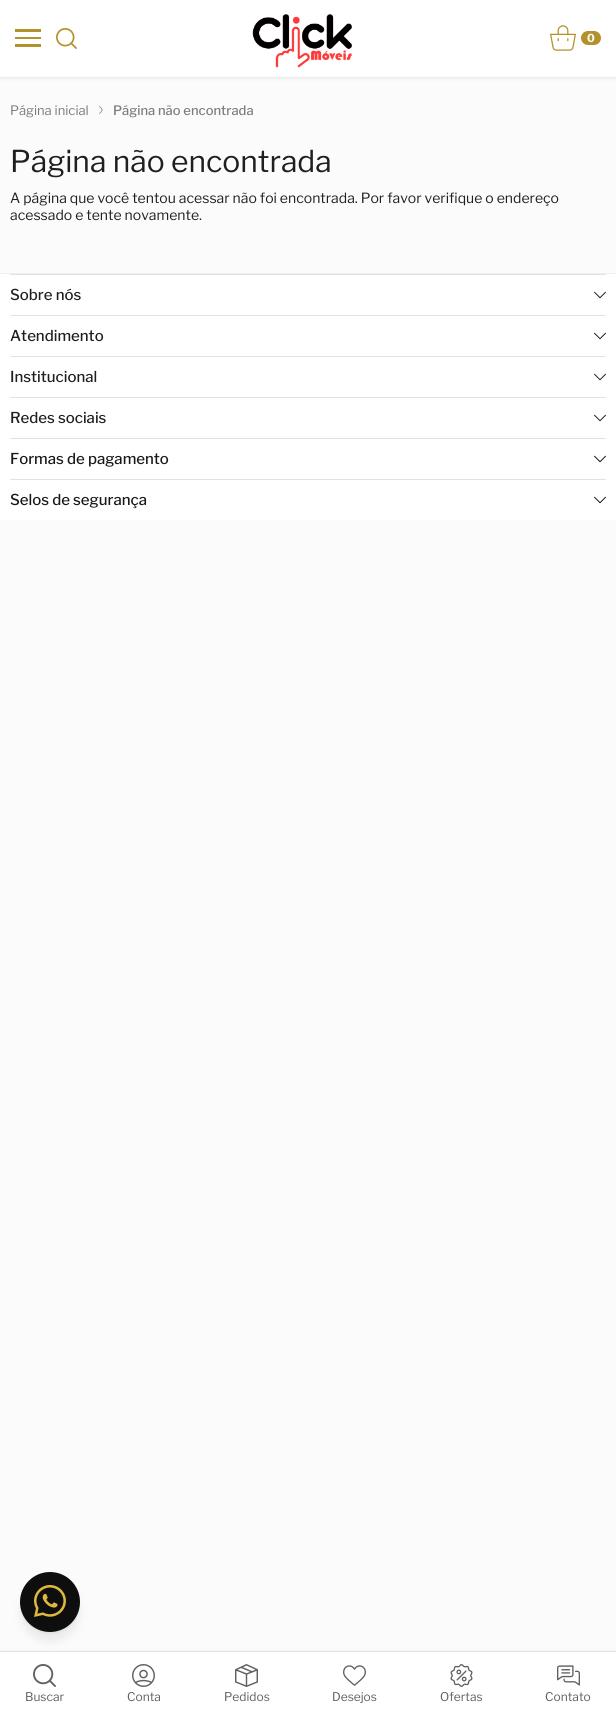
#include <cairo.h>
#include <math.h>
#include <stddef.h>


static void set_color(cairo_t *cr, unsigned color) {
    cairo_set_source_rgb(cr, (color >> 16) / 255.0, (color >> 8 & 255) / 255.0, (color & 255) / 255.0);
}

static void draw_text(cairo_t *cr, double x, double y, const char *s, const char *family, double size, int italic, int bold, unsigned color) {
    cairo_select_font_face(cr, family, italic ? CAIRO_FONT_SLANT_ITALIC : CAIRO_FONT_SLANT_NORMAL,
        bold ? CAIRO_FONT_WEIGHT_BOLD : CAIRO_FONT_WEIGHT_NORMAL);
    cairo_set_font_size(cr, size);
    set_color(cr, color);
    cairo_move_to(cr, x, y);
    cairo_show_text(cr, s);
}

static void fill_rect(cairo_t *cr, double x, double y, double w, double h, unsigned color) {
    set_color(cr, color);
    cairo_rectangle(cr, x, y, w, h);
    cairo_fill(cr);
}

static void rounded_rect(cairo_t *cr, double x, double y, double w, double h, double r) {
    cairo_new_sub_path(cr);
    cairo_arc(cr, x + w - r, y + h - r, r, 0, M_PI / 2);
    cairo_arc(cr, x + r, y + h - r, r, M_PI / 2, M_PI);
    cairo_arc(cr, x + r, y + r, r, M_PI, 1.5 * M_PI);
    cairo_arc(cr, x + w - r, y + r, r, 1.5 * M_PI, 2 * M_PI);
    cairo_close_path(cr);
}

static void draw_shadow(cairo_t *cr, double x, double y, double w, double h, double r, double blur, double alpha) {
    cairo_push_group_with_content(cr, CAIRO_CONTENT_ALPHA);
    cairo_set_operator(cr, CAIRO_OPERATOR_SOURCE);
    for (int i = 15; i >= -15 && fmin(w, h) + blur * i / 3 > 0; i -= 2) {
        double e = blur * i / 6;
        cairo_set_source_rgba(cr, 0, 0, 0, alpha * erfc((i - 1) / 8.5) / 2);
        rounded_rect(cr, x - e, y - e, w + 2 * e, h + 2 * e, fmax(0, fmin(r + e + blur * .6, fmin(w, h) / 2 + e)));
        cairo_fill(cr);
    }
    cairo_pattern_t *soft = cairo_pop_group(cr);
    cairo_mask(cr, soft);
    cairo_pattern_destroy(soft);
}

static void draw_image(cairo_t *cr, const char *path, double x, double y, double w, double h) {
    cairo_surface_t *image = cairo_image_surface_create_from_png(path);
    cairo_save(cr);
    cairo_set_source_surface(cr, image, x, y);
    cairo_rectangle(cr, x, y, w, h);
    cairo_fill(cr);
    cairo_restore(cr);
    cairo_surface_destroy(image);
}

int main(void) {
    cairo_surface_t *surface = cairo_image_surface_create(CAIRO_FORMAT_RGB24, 616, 1722);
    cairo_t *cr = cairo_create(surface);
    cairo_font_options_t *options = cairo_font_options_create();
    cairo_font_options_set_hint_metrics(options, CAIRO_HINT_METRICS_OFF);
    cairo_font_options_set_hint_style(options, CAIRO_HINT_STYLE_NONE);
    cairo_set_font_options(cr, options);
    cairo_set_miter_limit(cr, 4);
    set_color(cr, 0xFBFBFB);
    cairo_paint(cr);
    set_color(cr, 0x525252);
    draw_shadow(cr, 0, 1, 616, 77, 0, 2, 0.13);
    fill_rect(cr, 0, 0, 616, 76, 0xFFFFFF);
    fill_rect(cr, 0, 76, 616, 1, 0xFCFCFC);
    fill_rect(cr, 15, 44, 26, 3, 0xB3922B);
    fill_rect(cr, 15, 37, 26, 2, 0xB3922B);
    fill_rect(cr, 15, 29, 26, 3, 0xB3922B);
    draw_image(cr, "assets/img1.png", 56, 28, 21, 21);
    draw_image(cr, "assets/img2.png", 252, 14, 101, 54);
    draw_image(cr, "assets/img3.png", 550, 25, 26, 26);
    rounded_rect(cr, 581, 31, 20, 14, 7);
    cairo_fill(cr);
    draw_text(cr, 587, 42, "0", "Libre Franklin", 11, 0, 1, 0xFFFFFF);
    draw_text(cr, 10, 115, "Página inicial", "Libre Franklin", 13, 0, 0, 0x7B7B7B);
    draw_image(cr, "assets/img4.png", 99, 106, 4, 8);
    draw_text(cr, 113, 115, "Página não encontrada", "Libre Franklin Medium", 13, 0, 0, 0x7B7B7B);
    draw_text(cr, 10, 172, "Página não encontrada", "Libre Franklin", 30, 0, 0, 0x201F1F);
    draw_text(cr, 10, 203, "A página que você tentou acessar não foi encontrada. Por favor verifique o endereço", "Libre Franklin", 14, 0, 0, 0x201F1F);
    draw_text(cr, 10, 220, "acessado e tente novamente.", "Libre Franklin", 14, 0, 0, 0x201F1F);
    fill_rect(cr, 0, 273, 616, 1, 0xEFEFEF);
    fill_rect(cr, 0, 274, 616, 246, 0xFFFFFF);
    fill_rect(cr, 10, 274, 596, 1, 0xE2E2E2);
    draw_text(cr, 10, 300, "Sobre nós", "Libre Franklin Medium", 15, 0, 0, 0x201F1F);
    draw_image(cr, "assets/img5.png", 594, 291, 12, 8);
    fill_rect(cr, 10, 315, 596, 1, 0xE2E2E2);
    draw_text(cr, 10, 341, "Atendimento", "Libre Franklin Medium", 15, 0, 0, 0x201F1F);
    draw_image(cr, "assets/img5.png", 594, 332, 12, 8);
    fill_rect(cr, 10, 356, 596, 1, 0xE2E2E2);
    draw_text(cr, 10, 382, "Institucional", "Libre Franklin Medium", 15, 0, 0, 0x201F1F);
    draw_image(cr, "assets/img5.png", 594, 373, 12, 8);
    fill_rect(cr, 10, 397, 596, 1, 0xE2E2E2);
    draw_text(cr, 10, 423, "Redes sociais", "Libre Franklin Medium", 15, 0, 0, 0x201F1F);
    draw_image(cr, "assets/img5.png", 594, 414, 12, 8);
    fill_rect(cr, 10, 438, 596, 1, 0xE2E2E2);
    draw_text(cr, 10, 464, "Formas de pagamento", "Libre Franklin Medium", 15, 0, 0, 0x181818);
    draw_image(cr, "assets/img6.png", 594, 455, 12, 8);
    fill_rect(cr, 10, 479, 596, 1, 0xE2E2E2);
    draw_text(cr, 10, 505, "Selos de segurança", "Libre Franklin Medium", 15, 0, 0, 0x181818);
    draw_image(cr, "assets/img6.png", 594, 496, 12, 8);
    set_color(cr, 0x676767);
    draw_shadow(cr, 20, 1582, 60, 60, 30, 4, 0.1);
    set_color(cr, 0x000000);
    draw_shadow(cr, 20, 1574, 60, 60, 30, 0.5, 0.04);
    set_color(cr, 0x0E0E0E);
    cairo_arc(cr, 50, 1602, 30, 0, 2 * M_PI);
    cairo_fill(cr);
    draw_image(cr, "assets/img7.png", 34, 1585, 32, 32);
    set_color(cr, 0x525252);
    draw_shadow(cr, 0, 1651, 616, 71, 0, 2, 0.08);
    fill_rect(cr, 0, 1652, 616, 70, 0xFFFFFF);
    fill_rect(cr, 0, 1651, 616, 1, 0xE2E2E2);
    draw_image(cr, "assets/img8.png", 33, 1664, 23, 23);
    draw_text(cr, 25, 1701, "Buscar", "Libre Franklin", 12, 0, 0, 0x606060);
    draw_image(cr, "assets/img9.png", 132, 1664, 23, 23);
    draw_text(cr, 127, 1701, "Conta", "Libre Franklin", 12, 0, 0, 0x606060);
    draw_image(cr, "assets/img10.png", 235, 1664, 23, 23);
    draw_text(cr, 224, 1701, "Pedidos", "Libre Franklin", 12, 0, 0, 0x606060);
    draw_image(cr, "assets/img11.png", 343, 1665, 23, 21);
    draw_text(cr, 332, 1701, "Desejos", "Libre Franklin", 12, 0, 0, 0x606060);
    draw_image(cr, "assets/img12.png", 450, 1664, 23, 23);
    draw_text(cr, 440, 1701, "Ofertas", "Libre Franklin", 12, 0, 0, 0x606060);
    draw_image(cr, "assets/img13.png", 557, 1665, 23, 21);
    draw_text(cr, 545, 1701, "Contato", "Libre Franklin", 12, 0, 0, 0x606060);
    cairo_surface_write_to_png(surface, "output.png");
    cairo_font_options_destroy(options);
    cairo_destroy(cr);
    cairo_surface_destroy(surface);
    return 0;
}
